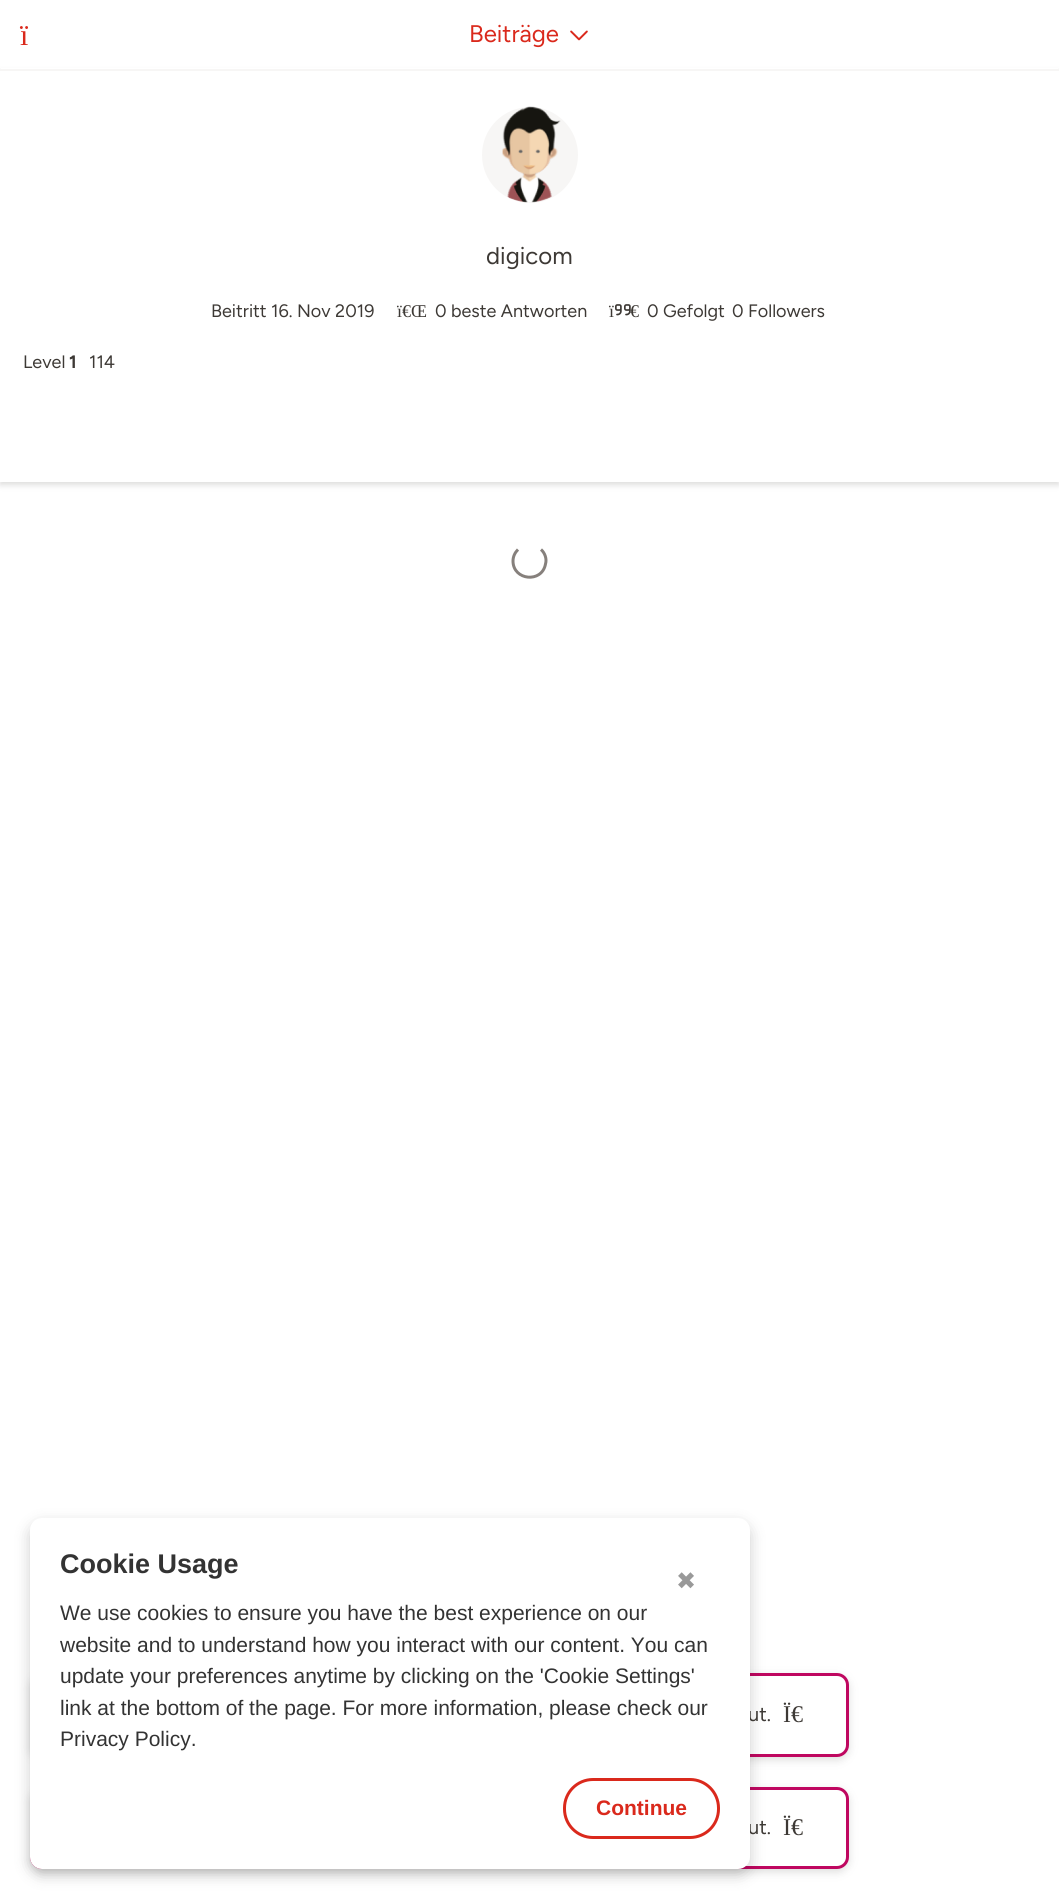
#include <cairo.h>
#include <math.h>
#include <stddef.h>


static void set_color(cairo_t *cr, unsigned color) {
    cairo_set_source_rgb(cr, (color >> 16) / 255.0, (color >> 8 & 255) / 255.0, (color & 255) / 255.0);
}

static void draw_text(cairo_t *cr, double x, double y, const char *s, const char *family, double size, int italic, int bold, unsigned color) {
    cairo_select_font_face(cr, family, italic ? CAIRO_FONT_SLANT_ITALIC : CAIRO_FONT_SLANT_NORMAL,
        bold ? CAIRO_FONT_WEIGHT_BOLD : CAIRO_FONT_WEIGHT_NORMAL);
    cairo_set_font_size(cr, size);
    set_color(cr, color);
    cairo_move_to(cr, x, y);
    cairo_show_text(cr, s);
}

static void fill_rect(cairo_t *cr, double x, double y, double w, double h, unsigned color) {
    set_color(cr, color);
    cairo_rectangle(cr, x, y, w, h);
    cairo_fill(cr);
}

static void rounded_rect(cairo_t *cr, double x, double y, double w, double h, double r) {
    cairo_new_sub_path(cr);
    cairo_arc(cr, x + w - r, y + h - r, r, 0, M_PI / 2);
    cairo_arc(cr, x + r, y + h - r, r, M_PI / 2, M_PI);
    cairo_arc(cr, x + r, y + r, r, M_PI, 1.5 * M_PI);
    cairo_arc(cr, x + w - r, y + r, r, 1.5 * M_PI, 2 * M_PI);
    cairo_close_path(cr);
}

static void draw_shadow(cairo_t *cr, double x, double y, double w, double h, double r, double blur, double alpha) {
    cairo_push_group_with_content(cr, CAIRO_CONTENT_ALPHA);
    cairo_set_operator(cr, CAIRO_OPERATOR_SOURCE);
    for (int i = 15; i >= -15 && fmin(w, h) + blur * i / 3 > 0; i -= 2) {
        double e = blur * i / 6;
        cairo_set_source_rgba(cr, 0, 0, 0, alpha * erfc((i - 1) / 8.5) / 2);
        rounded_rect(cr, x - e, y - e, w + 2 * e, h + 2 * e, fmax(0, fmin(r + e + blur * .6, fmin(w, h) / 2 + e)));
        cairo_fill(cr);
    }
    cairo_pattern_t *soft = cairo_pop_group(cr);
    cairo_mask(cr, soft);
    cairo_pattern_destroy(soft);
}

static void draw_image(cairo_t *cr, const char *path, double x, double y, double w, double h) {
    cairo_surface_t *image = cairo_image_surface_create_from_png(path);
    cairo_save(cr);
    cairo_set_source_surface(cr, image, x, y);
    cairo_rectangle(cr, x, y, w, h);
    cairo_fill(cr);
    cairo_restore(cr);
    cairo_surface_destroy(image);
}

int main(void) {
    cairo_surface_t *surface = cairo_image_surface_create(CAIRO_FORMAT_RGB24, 1059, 1899);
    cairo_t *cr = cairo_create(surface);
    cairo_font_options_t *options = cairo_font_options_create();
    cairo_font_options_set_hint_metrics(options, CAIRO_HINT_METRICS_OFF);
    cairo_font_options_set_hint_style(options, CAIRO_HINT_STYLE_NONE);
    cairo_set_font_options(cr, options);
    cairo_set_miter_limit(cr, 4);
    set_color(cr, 0xFFFFFF);
    cairo_paint(cr);
    set_color(cr, 0x575452);
    draw_shadow(cr, 0, 72, 1059, 413, 0, 3, 0.2);
    fill_rect(cr, 1, 68, 1057, 1, 0xFFFFFF);
    draw_text(cr, 20, 45, "ï", "Liberation Serif", 30, 0, 0, 0xDA291C);
    draw_text(cr, 469, 42, "Beiträge", "Figtree", 24, 0, 0, 0xDA291C);
    draw_image(cr, "assets/img1.png", 570, 30, 18, 11);
    cairo_new_path(cr);
    cairo_move_to(cr, 541, 549.5);
    cairo_curve_to(cr, 545, 553, 547, 559, 545.5, 564);
    cairo_curve_to(cr, 542, 583.5, 513, 580.5, 513, 561);
    cairo_curve_to(cr, 513, 556.5, 515, 552.5, 518, 549.5);
    set_color(cr, 0x86807C);
    cairo_set_line_width(cr, 3);
    cairo_stroke(cr);
    fill_rect(cr, 0, 71, 1059, 411, 0xFFFFFF);
    fill_rect(cr, 0, 69, 1059, 2, 0xF7F6F5);
    cairo_arc(cr, 530, 155, 51, 0, 2 * M_PI);
    cairo_fill_preserve(cr);
    set_color(cr, 0xFFFFFF);
    cairo_set_line_width(cr, 6);
    cairo_stroke(cr);
    draw_image(cr, "assets/img2.png", 502, 106, 59, 97);
    draw_text(cr, 486, 264, "digicom", "Figtree", 24, 0, 0, 0x3D3935);
    draw_text(cr, 211, 317, "Beitritt 16. Nov 2019", "Figtree", 18, 0, 0, 0x3D3935);
    draw_text(cr, 397, 317, "ï€Œ", "Liberation Serif", 18, 0, 0, 0x3D3935);
    draw_text(cr, 435, 317, "0 beste Antworten", "Figtree", 18, 0, 0, 0x3D3935);
    draw_text(cr, 609, 317, "ï", "Liberation Serif", 18, 0, 0, 0x3D3935);
    draw_image(cr, "assets/img3.png", 615, 304, 16, 12);
    draw_text(cr, 630, 317, "€", "Liberation Serif", 18, 0, 0, 0x3D3935);
    draw_text(cr, 647, 317, "0 Gefolgt", "Figtree", 18, 0, 0, 0x3D3935);
    draw_text(cr, 732, 317, "0 Followers", "Figtree", 18, 0, 0, 0x3D3935);
    draw_text(cr, 23, 368, "Level", "Figtree", 18, 0, 0, 0x3D3935);
    draw_text(cr, 69, 368, "1", "Figtree", 18, 0, 1, 0x3D3935);
    draw_text(cr, 89, 368, "114", "Figtree", 18, 0, 0, 0x3D3935);
    set_color(cr, 0x575452);
    draw_shadow(cr, 30, 1676, 819, 84, 12, 4.5, 0.2);
    set_color(cr, 0xFFFFFF);
    rounded_rect(cr, 31.5, 1674.5, 816, 81, 10.5);
    cairo_fill_preserve(cr);
    set_color(cr, 0xBF0760);
    cairo_set_line_width(cr, 3);
    cairo_stroke(cr);
    set_color(cr, 0x575452);
    draw_shadow(cr, 30, 1790, 819, 82, 12, 4.5, 0.2);
    set_color(cr, 0xFFFFFF);
    rounded_rect(cr, 31.5, 1788.5, 816, 79, 10.5);
    cairo_fill_preserve(cr);
    set_color(cr, 0xBF0760);
    cairo_stroke(cr);
    set_color(cr, 0x000000);
    draw_shadow(cr, 30, 1524, 720, 351, 12, 7.5, 0.2);
    draw_text(cr, 748, 1721, "ut.", "Figtree", 20, 0, 0, 0x3D3935);
    draw_text(cr, 748, 1834, "ut.", "Figtree", 20, 0, 0, 0x3D3935);
    set_color(cr, 0xFFFFFF);
    rounded_rect(cr, 30, 1518, 720, 351, 12);
    cairo_fill(cr);
    draw_text(cr, 60, 1573, "Cookie Usage", "Liberation Sans", 27, 0, 1, 0x333333);
    draw_text(cr, 676, 1589, "✖", "DejaVu Sans", 24, 0, 0, 0x999999);
    draw_text(cr, 60, 1620, "We use cookies to ensure you have the best experience on our", "Liberation Sans", 21, 0, 0, 0x333333);
    draw_text(cr, 60, 1652, "website and to understand how you interact with our content. You can", "Liberation Sans", 21, 0, 0, 0x333333);
    draw_text(cr, 60, 1683, "update your preferences anytime by clicking on the 'Cookie Settings'", "Liberation Sans", 21, 0, 0, 0x333333);
    draw_text(cr, 60, 1715, "link at the bottom of the page. For more information, please check our", "Liberation Sans", 21, 0, 0, 0x333333);
    draw_text(cr, 60, 1746, "Privacy Policy.", "Liberation Sans", 21, 0, 0, 0x333333);
    rounded_rect(cr, 564.5, 1779.5, 154, 58, 28.5);
    set_color(cr, 0xDA291C);
    cairo_stroke(cr);
    draw_text(cr, 596, 1815, "Continue", "Liberation Sans", 21, 0, 1, 0xDA291C);
    draw_text(cr, 783, 1722, "Ï€", "Liberation Serif", 24, 0, 0, 0x3D3935);
    draw_text(cr, 783, 1835, "Ï€", "Liberation Serif", 24, 0, 0, 0x3D3935);
    cairo_surface_write_to_png(surface, "output.png");
    cairo_font_options_destroy(options);
    cairo_destroy(cr);
    cairo_surface_destroy(surface);
    return 0;
}
